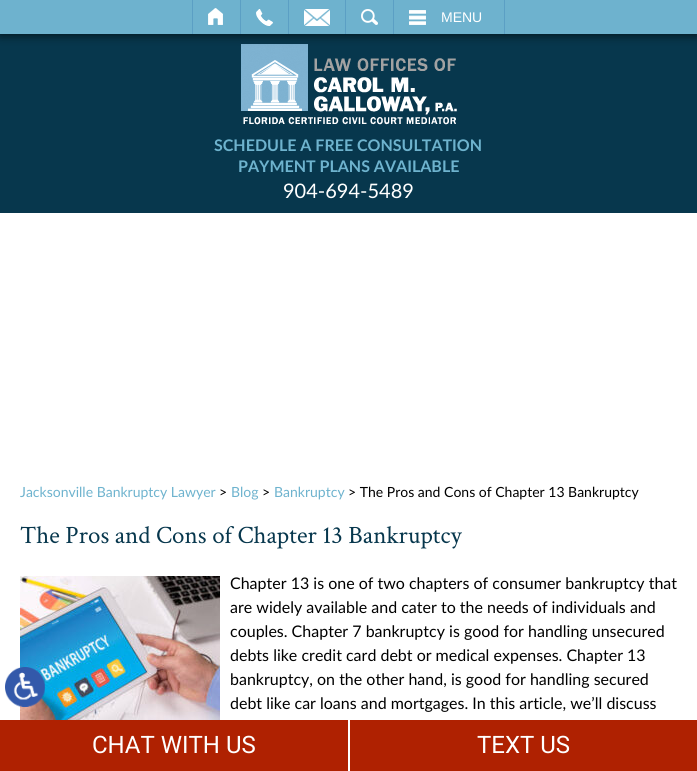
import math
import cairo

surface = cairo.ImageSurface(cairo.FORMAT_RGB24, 697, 771)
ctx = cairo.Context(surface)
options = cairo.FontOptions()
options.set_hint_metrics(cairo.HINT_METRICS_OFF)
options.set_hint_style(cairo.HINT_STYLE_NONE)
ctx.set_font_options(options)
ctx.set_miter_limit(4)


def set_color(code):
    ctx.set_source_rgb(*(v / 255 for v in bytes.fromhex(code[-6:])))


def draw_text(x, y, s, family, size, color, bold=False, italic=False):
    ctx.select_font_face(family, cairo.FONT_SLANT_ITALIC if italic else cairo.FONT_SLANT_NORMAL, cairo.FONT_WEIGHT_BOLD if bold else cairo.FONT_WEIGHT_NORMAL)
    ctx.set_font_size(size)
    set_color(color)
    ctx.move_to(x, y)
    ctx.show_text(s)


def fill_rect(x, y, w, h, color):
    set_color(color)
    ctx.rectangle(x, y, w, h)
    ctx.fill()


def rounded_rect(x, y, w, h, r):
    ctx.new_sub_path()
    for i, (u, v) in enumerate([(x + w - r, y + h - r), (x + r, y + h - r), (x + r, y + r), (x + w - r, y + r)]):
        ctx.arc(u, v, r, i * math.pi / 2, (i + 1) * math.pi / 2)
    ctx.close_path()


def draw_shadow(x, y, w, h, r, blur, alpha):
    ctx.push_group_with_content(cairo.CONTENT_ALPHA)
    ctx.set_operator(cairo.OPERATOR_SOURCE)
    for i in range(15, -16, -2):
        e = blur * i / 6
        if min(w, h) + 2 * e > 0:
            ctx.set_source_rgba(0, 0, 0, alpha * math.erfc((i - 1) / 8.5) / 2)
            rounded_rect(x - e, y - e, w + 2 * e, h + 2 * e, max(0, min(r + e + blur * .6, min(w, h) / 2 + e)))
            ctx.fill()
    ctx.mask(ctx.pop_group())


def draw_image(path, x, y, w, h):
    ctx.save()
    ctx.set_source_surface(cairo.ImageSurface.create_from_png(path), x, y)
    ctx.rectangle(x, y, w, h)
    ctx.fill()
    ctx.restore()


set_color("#ffffff")
ctx.paint()
fill_rect(0, 34, 697, 179, "#07374d")
draw_image("assets/img6.png", 241, 44, 216, 81)
set_color("#000000")
draw_shadow(0, 1, 697, 34, 0, 5, 0.7)
fill_rect(0, 0, 697, 34, "#6eb2ce")
fill_rect(240, 0, 1, 34, "#5b9fc4")
fill_rect(192, 0, 1, 34, "#5b9fc4")
draw_image("assets/img1.png", 208, 8, 15, 17)
fill_rect(288, 0, 1, 34, "#5b9fc4")
draw_image("assets/img2.png", 256, 9, 17, 17)
fill_rect(345, 0, 1, 34, "#5b9fc4")
draw_image("assets/img3.png", 304, 9, 26, 17)
fill_rect(393, 0, 1, 34, "#5b9fc4")
draw_image("assets/img4.png", 361, 9, 17, 16)
fill_rect(504, 0, 1, 34, "#5b9fc4")
draw_image("assets/img5.png", 409, 10, 17, 15)
draw_text(441, 22, "MENU", "Liberation Sans", 14, "#ffffff")
draw_text(214, 151, "SCHEDULE A FREE CONSULTATION", "Lato", 16, "#6eb3ce", bold=True)
draw_text(238, 172, "PAYMENT PLANS AVAILABLE", "Lato", 16, "#6eb3ce", bold=True)
draw_text(283, 198, "904-694-5489", "Lato", 20, "#ffffff")
draw_text(20, 497, "Jacksonville Bankruptcy Lawyer", "Lato", 14, "#6eb3ce")
draw_text(219, 497, ">", "Lato", 14, "#000000")
draw_text(231, 497, "Blog", "Lato", 14, "#6eb3ce")
draw_text(262, 497, ">", "Lato", 14, "#000000")
draw_text(274, 497, "Bankruptcy", "Lato", 14, "#6eb3ce")
draw_text(348, 497, "> The Pros and Cons of Chapter 13 Bankruptcy", "Lato", 14, "#000000")
draw_text(20, 543, "The Pros and Cons of Chapter 13 Bankruptcy", "Crimson Text", 25, "#07374d")
draw_image("assets/img7.png", 20, 576, 200, 144)
draw_text(230, 589, "Chapter 13 is one of two chapters of consumer bankruptcy that", "Lato", 16, "#000000")
draw_text(230, 613, "are widely available and cater to the needs of individuals and", "Lato", 16, "#000000")
draw_text(230, 637, "couples. Chapter 7 bankruptcy is good for handling unsecured", "Lato", 16, "#000000")
draw_text(230, 661, "debts like credit card debt or medical expenses. Chapter 13", "Lato", 16, "#000000")
draw_text(230, 685, "bankruptcy, on the other hand, is good for handling secured", "Lato", 16, "#000000")
draw_text(230, 709, "debt like car loans and mortgages. In this article, we’ll discuss", "Lato", 16, "#000000")
draw_image("assets/img8.png", 5, 667, 40, 40)
fill_rect(0, 720, 348, 51, "#af2101")
draw_text(92, 753, "CHAT WITH US", "Roboto", 24, "#ffffff")
fill_rect(350, 720, 347, 51, "#af2101")
draw_text(477, 753, "TEXT US", "Roboto", 24, "#ffffff")
surface.write_to_png("output.png")
